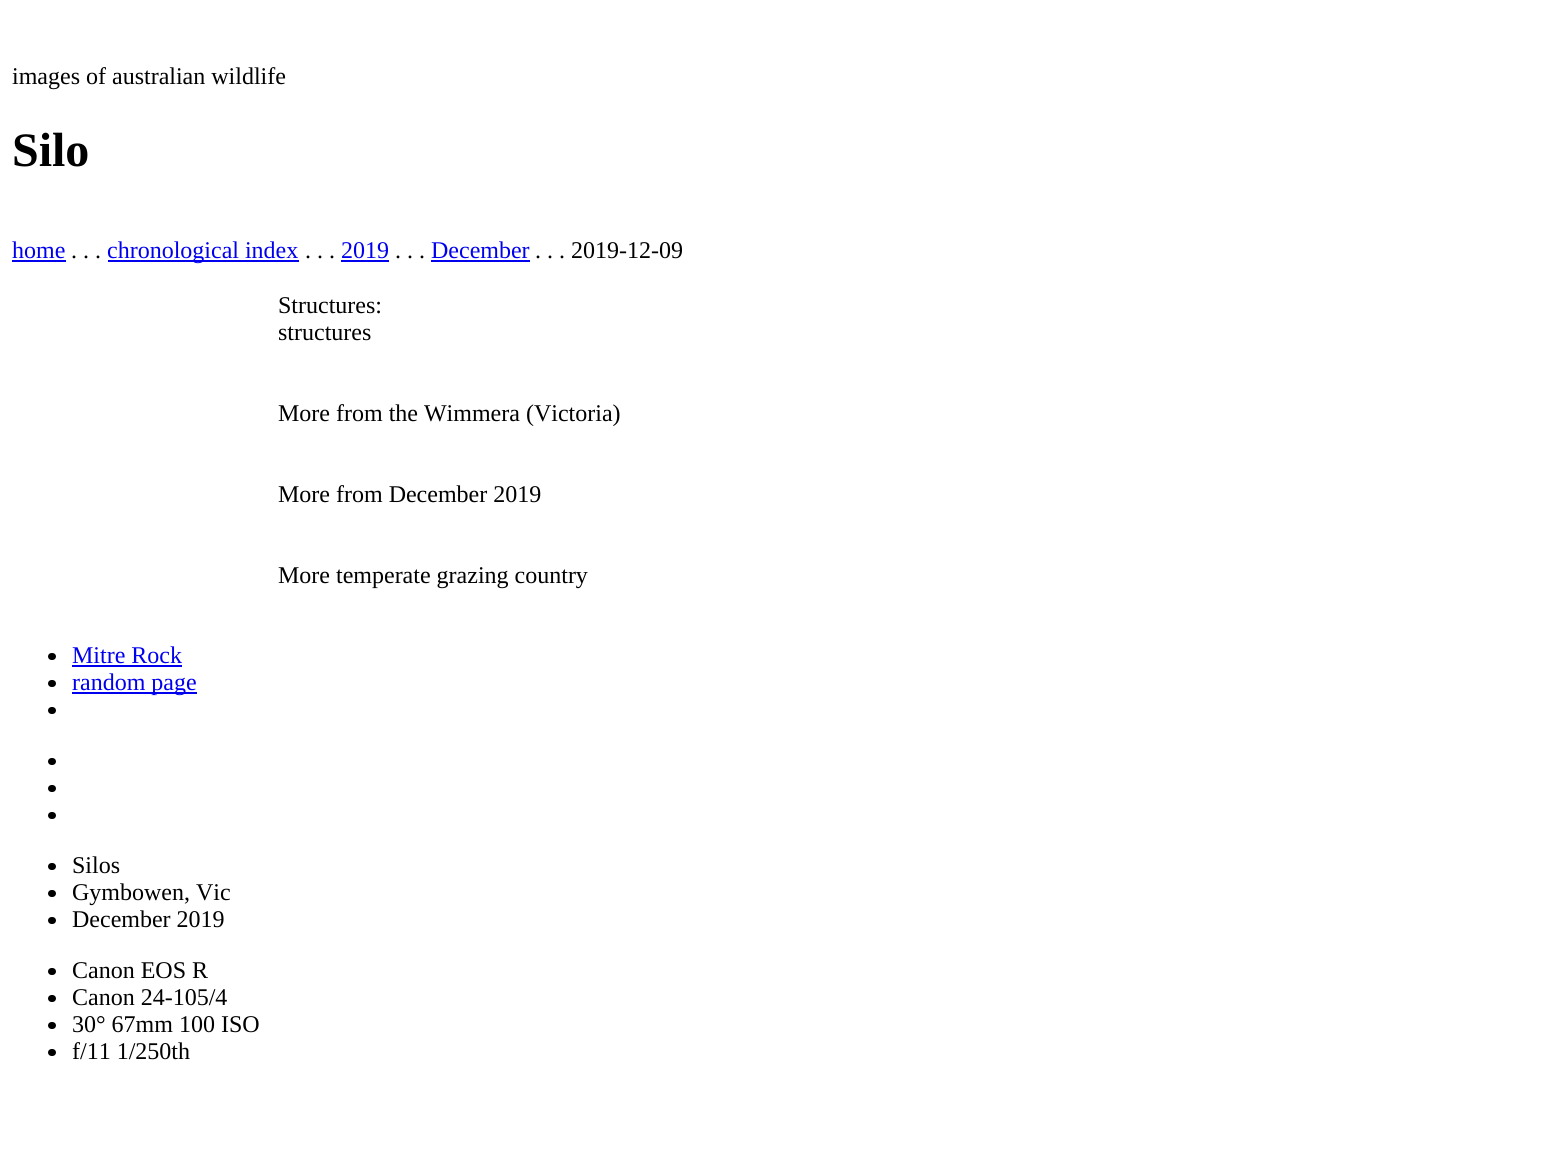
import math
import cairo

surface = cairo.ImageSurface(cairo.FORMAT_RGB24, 1561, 1173)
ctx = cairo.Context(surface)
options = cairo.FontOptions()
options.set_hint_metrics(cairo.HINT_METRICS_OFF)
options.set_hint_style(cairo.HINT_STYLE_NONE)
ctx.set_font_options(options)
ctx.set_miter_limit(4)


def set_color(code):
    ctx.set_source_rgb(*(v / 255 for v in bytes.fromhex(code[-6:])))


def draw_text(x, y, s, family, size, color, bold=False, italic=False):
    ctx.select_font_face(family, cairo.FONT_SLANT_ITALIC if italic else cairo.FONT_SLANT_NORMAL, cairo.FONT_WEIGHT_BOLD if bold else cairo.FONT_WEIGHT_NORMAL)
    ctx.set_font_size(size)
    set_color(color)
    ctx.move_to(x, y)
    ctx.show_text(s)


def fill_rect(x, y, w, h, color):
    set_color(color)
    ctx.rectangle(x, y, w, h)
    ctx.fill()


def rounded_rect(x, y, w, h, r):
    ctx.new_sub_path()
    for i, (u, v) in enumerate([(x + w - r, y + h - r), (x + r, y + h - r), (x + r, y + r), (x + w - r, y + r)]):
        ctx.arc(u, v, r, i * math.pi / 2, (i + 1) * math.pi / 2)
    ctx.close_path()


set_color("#ffffff")
ctx.paint()
draw_text(12, 84, "images of australian wildlife", "Liberation Serif", 24, "#000000")
draw_text(12, 166, "Silo", "Liberation Serif", 48, "#000000", bold=True)
draw_text(12, 258, "home", "Liberation Serif", 24, "#0000ee")
fill_rect(12, 260, 54, 2, "#0000ee")
draw_text(71, 258, ". . .", "Liberation Serif", 24, "#000000")
fill_rect(108, 260, 191, 2, "#0000ee")
draw_text(107, 258, "chronological index", "Liberation Serif", 24, "#0000ee")
draw_text(305, 258, ". . .", "Liberation Serif", 24, "#000000")
draw_text(341, 258, "2019", "Liberation Serif", 24, "#0000ee")
fill_rect(341, 260, 48, 2, "#0000ee")
draw_text(395, 258, ". . .", "Liberation Serif", 24, "#000000")
draw_text(431, 258, "December", "Liberation Serif", 24, "#0000ee")
fill_rect(431, 260, 99, 2, "#0000ee")
draw_text(535, 258, ". . . 2019-12-09", "Liberation Serif", 24, "#000000")
draw_text(278, 313, "Structures:", "Liberation Serif", 24, "#000000")
draw_text(278, 340, "structures", "Liberation Serif", 24, "#000000")
draw_text(278, 421, "More from the Wimmera (Victoria)", "Liberation Serif", 24, "#000000")
draw_text(278, 502, "More from December 2019", "Liberation Serif", 24, "#000000")
draw_text(278, 583, "More temperate grazing country", "Liberation Serif", 24, "#000000")
rounded_rect(48, 653, 8, 7, 3.5)
ctx.fill()
draw_text(72, 663, "Mitre Rock", "Liberation Serif", 24, "#0000ee")
fill_rect(72, 665, 110, 2, "#0000ee")
set_color("#000000")
rounded_rect(48, 680, 8, 7, 3.5)
ctx.fill()
fill_rect(72, 692, 125, 2, "#0000ee")
draw_text(72, 690, "random page", "Liberation Serif", 24, "#0000ee")
set_color("#000000")
rounded_rect(48, 707, 8, 7, 3.5)
ctx.fill()
rounded_rect(48, 758, 8, 7, 3.5)
ctx.fill()
rounded_rect(48, 785, 8, 7, 3.5)
ctx.fill()
rounded_rect(48, 812, 8, 7, 3.5)
ctx.fill()
rounded_rect(48, 863, 8, 7, 3.5)
ctx.fill()
draw_text(72, 873, "Silos", "Liberation Serif", 24, "#000000")
rounded_rect(48, 890, 8, 7, 3.5)
ctx.fill()
draw_text(72, 900, "Gymbowen, Vic", "Liberation Serif", 24, "#000000")
rounded_rect(48, 917, 8, 7, 3.5)
ctx.fill()
draw_text(72, 927, "December 2019", "Liberation Serif", 24, "#000000")
rounded_rect(48, 968, 8, 7, 3.5)
ctx.fill()
draw_text(72, 978, "Canon EOS R", "Liberation Serif", 24, "#000000")
rounded_rect(48, 995, 8, 7, 3.5)
ctx.fill()
draw_text(72, 1005, "Canon 24-105/4", "Liberation Serif", 24, "#000000")
rounded_rect(48, 1022, 8, 7, 3.5)
ctx.fill()
draw_text(72, 1032, "30° 67mm 100 ISO", "Liberation Serif", 24, "#000000")
rounded_rect(48, 1049, 8, 7, 3.5)
ctx.fill()
draw_text(72, 1059, "f/11 1/250th", "Liberation Serif", 24, "#000000")
surface.write_to_png("output.png")
